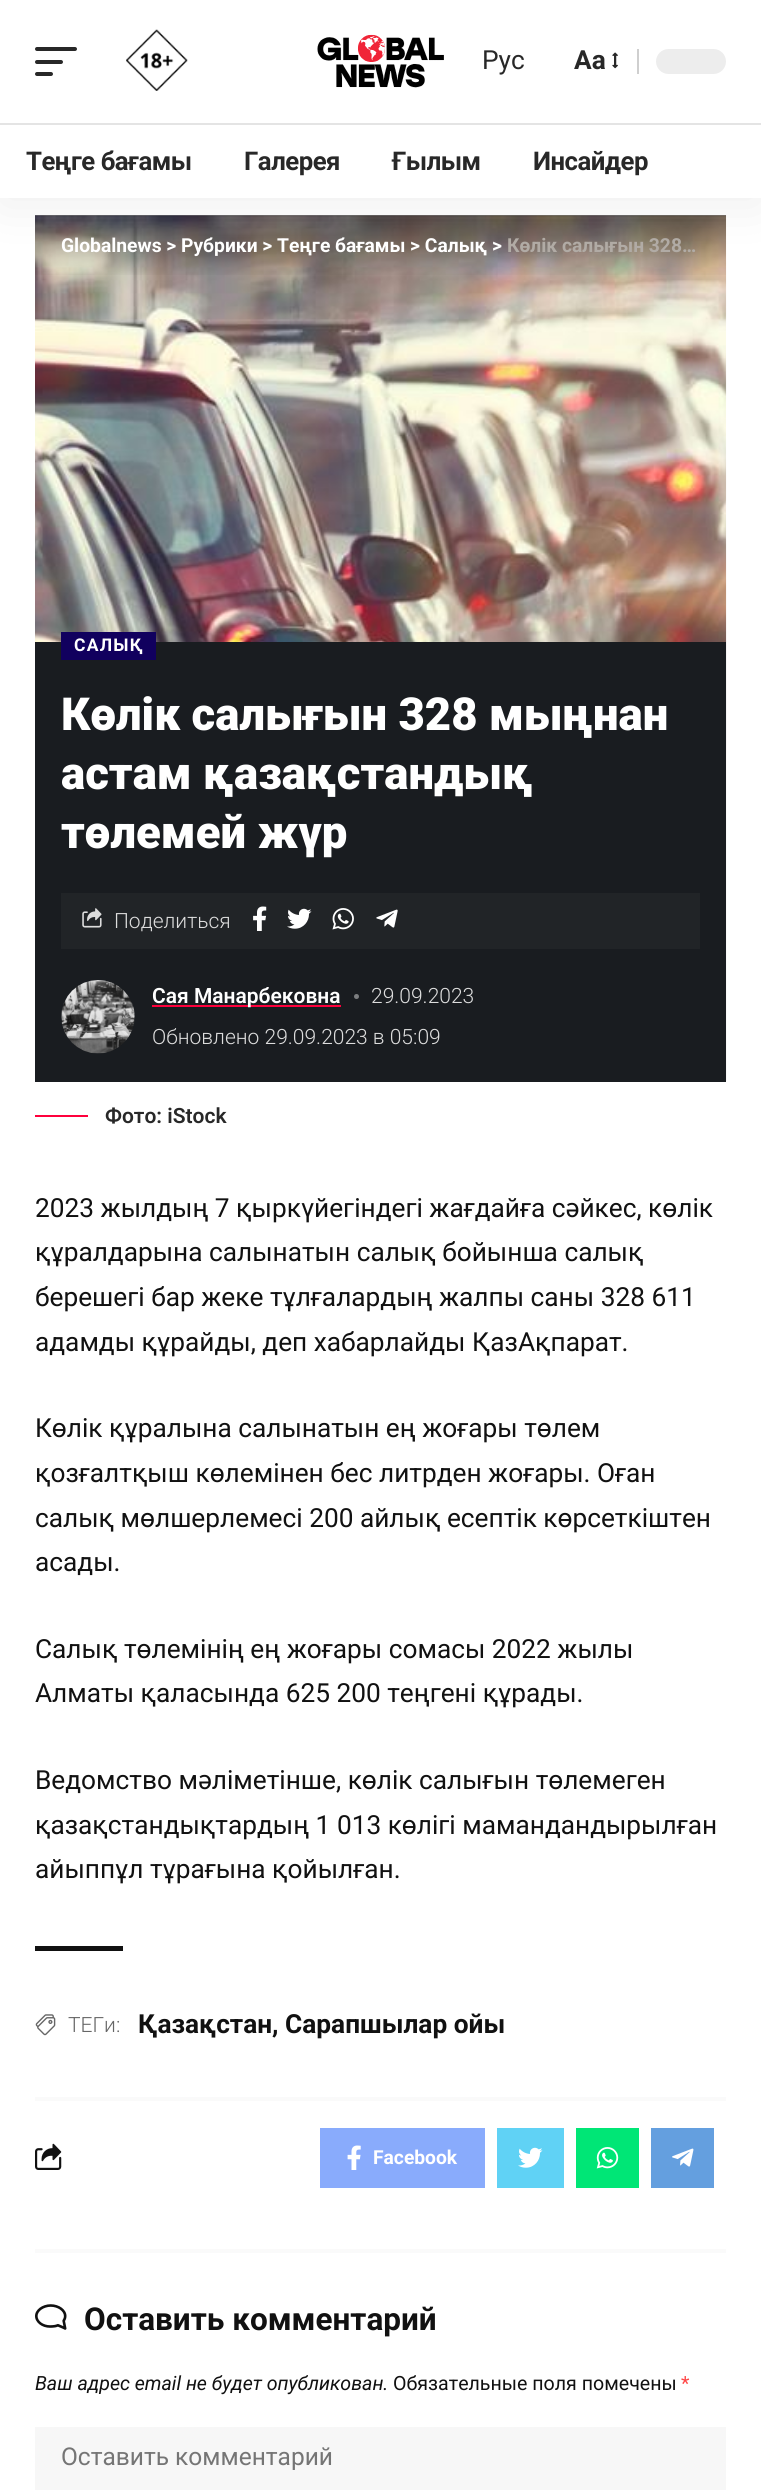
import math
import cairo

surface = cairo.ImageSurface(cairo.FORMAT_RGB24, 761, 2490)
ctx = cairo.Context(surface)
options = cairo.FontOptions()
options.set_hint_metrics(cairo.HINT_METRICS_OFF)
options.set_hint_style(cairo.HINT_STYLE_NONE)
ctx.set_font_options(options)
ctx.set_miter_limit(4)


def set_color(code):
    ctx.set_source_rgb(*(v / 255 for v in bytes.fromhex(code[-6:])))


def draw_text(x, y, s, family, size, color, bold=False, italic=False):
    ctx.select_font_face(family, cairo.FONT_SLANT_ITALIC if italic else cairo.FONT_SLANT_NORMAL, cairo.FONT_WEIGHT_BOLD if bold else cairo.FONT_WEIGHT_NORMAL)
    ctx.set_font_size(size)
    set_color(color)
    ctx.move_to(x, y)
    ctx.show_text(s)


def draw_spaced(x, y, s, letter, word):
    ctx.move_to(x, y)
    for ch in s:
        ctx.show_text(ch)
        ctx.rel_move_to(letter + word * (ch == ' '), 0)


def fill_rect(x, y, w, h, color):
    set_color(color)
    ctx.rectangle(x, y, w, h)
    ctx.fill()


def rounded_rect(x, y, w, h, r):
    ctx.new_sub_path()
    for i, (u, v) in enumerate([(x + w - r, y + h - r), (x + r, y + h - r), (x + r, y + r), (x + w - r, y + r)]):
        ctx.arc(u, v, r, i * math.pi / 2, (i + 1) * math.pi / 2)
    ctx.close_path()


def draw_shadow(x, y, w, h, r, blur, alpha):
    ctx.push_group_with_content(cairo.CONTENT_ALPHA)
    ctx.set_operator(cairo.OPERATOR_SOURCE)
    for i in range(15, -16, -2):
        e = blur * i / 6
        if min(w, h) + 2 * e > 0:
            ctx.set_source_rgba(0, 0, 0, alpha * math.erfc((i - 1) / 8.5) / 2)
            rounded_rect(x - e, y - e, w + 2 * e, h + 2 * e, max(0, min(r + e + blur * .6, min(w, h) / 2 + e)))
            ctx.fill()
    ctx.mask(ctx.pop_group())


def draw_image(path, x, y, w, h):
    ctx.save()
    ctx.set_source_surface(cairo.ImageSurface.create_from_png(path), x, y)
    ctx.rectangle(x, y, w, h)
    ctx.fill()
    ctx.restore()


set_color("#ffffff")
ctx.paint()
draw_image("assets/img4.png", 35, 215, 692, 866)
gradient = cairo.LinearGradient(381, 278, 381, 215)
gradient.add_color_stop_rgba(0, 0, 0, 0, 0)
gradient.add_color_stop_rgba(1, 0, 0, 0, 0.5)
ctx.set_source(gradient)
ctx.rectangle(35, 215, 691, 60)
ctx.fill()
set_color("#000000")
draw_shadow(0, 7, 761, 198, 0, 26, 0.07)
fill_rect(0, 0, 761, 198, "#ffffff")
set_color("#282828")
rounded_rect(35, 47, 42, 4, 2)
ctx.fill()
rounded_rect(35, 60, 28, 4, 2)
ctx.fill()
rounded_rect(35, 72, 18, 4, 2)
ctx.fill()
draw_image("assets/img1.png", 126, 29, 62, 62)
draw_image("assets/img2.png", 317, 34, 127, 54)
draw_text(482, 69, "Рус", "Roboto", 26.25, "#282828")
draw_text(574, 69, "Aa", "Roboto", 26.25, "#282828", bold=True)
draw_image("assets/img3.png", 612, 52, 6, 17)
fill_rect(637, 49, 2, 25, "#cfcfcf")
set_color("#ededed")
rounded_rect(656, 49, 70, 25, 12.5)
ctx.fill()
fill_rect(0, 123, 761, 2, "#e4e4e4")
ctx.set_font_size(25.75)
set_color("#282828")
draw_spaced(26, 170, "Теңге бағамы", -0.5, 0)
draw_spaced(244, 170, "Галерея", -0.5, 0)
draw_spaced(392, 170, "Ғылым", -0.5, 0)
draw_spaced(533, 170, "Инсайдер", -0.5, 0)
draw_text(61, 252, "Globalnews > Рубрики > Теңге бағамы > Cалық >", "Roboto", 19.25, "#ffffff", bold=True)
draw_text(507, 252, "Көлік салығын 328…", "Roboto", 19.25, "#b1aba5", bold=True)
fill_rect(35, 642, 691, 440, "#191c20")
fill_rect(61, 632, 95, 28, "#11005e")
ctx.set_font_size(17.5)
set_color("#ffffff")
draw_spaced(74, 651, "CАЛЫҚ", 1.25, 0)
draw_text(61, 730, "Көлік салығын 328 мыңнан", "Roboto Black", 45.5, "#ffffff")
draw_text(61, 789, "астам қазақстандық", "Roboto Black", 45.5, "#ffffff")
draw_text(61, 848, "төлемей жүр", "Roboto Black", 45.5, "#ffffff")
fill_rect(61, 893, 639, 56, "#212427")
draw_image("assets/img5.png", 82, 908, 20, 20)
draw_text(114, 928, "Поделиться", "Roboto Light", 21, "#dddddd")
draw_image("assets/img6.png", 253, 906, 14, 25)
draw_image("assets/img7.png", 287, 908, 25, 21)
draw_image("assets/img8.png", 332, 908, 22, 22)
draw_image("assets/img9.png", 376, 909, 22, 19)
draw_image("assets/img10.png", 61, 980, 74, 74)
fill_rect(152, 1005, 189, 2, "#ff003c")
draw_text(152, 1003, "Сая Манарбековна", "Roboto SemiBold", 21, "#ffffff")
set_color("#7b7d7f")
ctx.new_path()
ctx.arc(356.5, 996.5, 2.5, 0, 2 * math.pi)
ctx.fill()
draw_text(371, 1003, "29.09.2023", "Roboto Light", 21, "#dddddd")
draw_text(152, 1044, "Обновлено 29.09.2023 в 05:09", "Roboto Light", 21, "#dddddd")
fill_rect(35, 1115, 53, 2, "#ff003c")
draw_text(105, 1123, "Фото: iStock", "Roboto SemiBold", 21, "#282828")
draw_text(35, 1217, "2023 жылдың 7 қыркүйегіндегі жағдайға сәйкес, көлік", "Roboto", 26.25, "#111111")
draw_text(35, 1261, "құралдарына салынатын салық бойынша салық", "Roboto", 26.25, "#111111")
draw_text(35, 1306, "берешегі бар жеке тұлғалардың жалпы саны 328 611", "Roboto", 26.25, "#111111")
draw_text(35, 1351, "адамды құрайды, деп хабарлайды ҚазАқпарат.", "Roboto", 26.25, "#111111")
draw_text(35, 1437, "Көлік құралына салынатын ең жоғары төлем", "Roboto", 26.25, "#111111")
draw_text(35, 1482, "қозғалтқыш көлемінен бес литрден жоғары. Оған", "Roboto", 26.25, "#111111")
draw_text(35, 1527, "салық мөлшерлемесі 200 айлық есептік көрсеткіштен", "Roboto", 26.25, "#111111")
draw_text(35, 1571, "асады.", "Roboto", 26.25, "#111111")
draw_text(35, 1658, "Салық төлемінің ең жоғары сомасы 2022 жылы", "Roboto", 26.25, "#111111")
draw_text(35, 1702, "Алматы қаласында 625 200 теңгені құрады.", "Roboto", 26.25, "#111111")
draw_text(35, 1789, "Ведомство мәліметінше, көлік салығын төлемеген", "Roboto", 26.25, "#111111")
draw_text(35, 1834, "қазақстандықтардың 1 013 көлігі мамандандырылған", "Roboto", 26.25, "#111111")
draw_text(35, 1878, "айыппұл тұрағына қойылған.", "Roboto", 26.25, "#111111")
fill_rect(35, 1946, 88, 5, "#111111")
draw_image("assets/img11.png", 35, 2014, 21, 22)
draw_text(68, 2032, "ТЕГи:", "Roboto Light", 21, "#666666")
draw_text(138, 2033, "Қазақстан, Сарапшылар ойы", "Roboto", 26.25, "#111111", bold=True)
fill_rect(35, 2097, 691, 4, "#fafafa")
draw_image("assets/img12.png", 35, 2143, 27, 27)
fill_rect(320, 2128, 165, 60, "#89abfc")
draw_image("assets/img13.png", 347, 2145, 14, 25)
draw_text(373, 2164, "Facebook", "Roboto", 19.25, "#ffffff", bold=True)
fill_rect(497, 2128, 67, 60, "#60d2f5")
draw_image("assets/img14.png", 518, 2147, 25, 21)
fill_rect(576, 2128, 63, 60, "#00e676")
draw_image("assets/img15.png", 596, 2147, 23, 22)
fill_rect(651, 2128, 63, 60, "#649fdf")
draw_image("assets/img16.png", 672, 2148, 22, 19)
fill_rect(35, 2249, 691, 4, "#fafafa")
draw_image("assets/img17.png", 35, 2304, 32, 26)
draw_text(84, 2330, "Оставить комментарий", "Roboto", 31.5, "#111111", bold=True)
draw_text(35, 2390, "Ваш адрес email не будет опубликован.", "Roboto", 19.6, "#111111", italic=True)
draw_text(393, 2390, "Обязательные поля помечены", "Roboto", 19.6, "#111111")
draw_text(681, 2390, "*", "Roboto", 19.6, "#ff4545")
fill_rect(35, 2427, 691, 63, "#f7f7f7")
draw_text(61, 2465, "Оставить комментарий", "Roboto", 24.5, "#757575")
surface.write_to_png("output.png")
